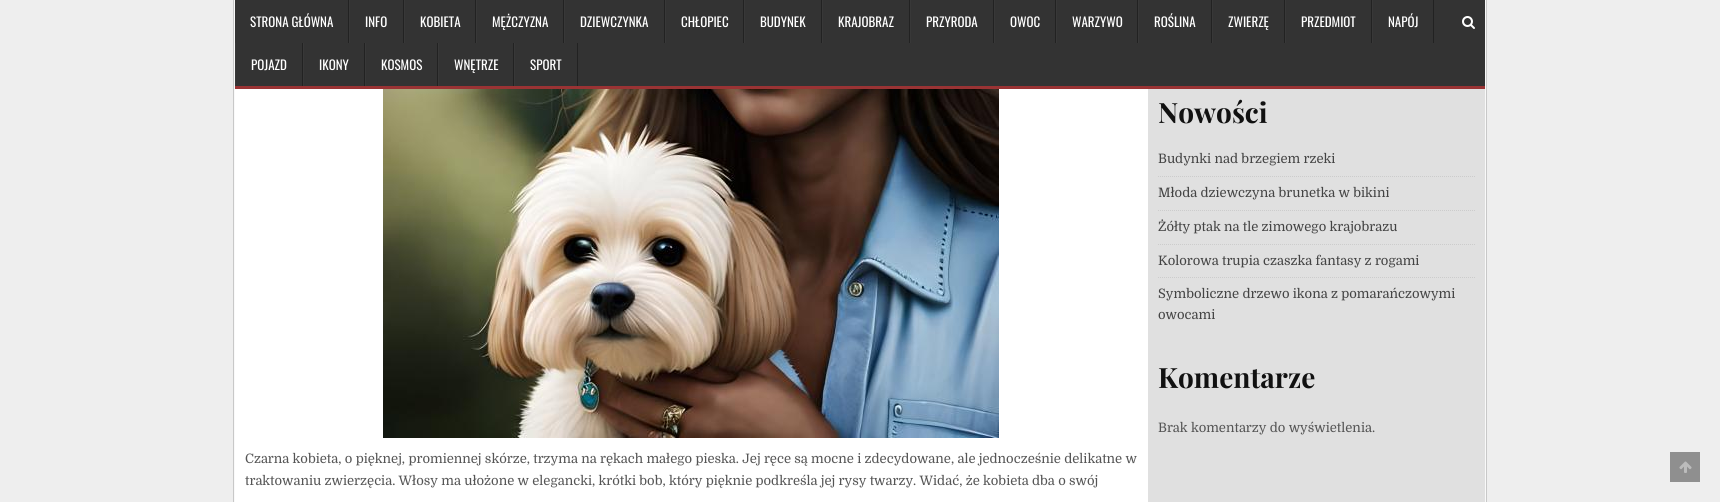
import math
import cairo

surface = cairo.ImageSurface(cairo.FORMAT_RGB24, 1720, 502)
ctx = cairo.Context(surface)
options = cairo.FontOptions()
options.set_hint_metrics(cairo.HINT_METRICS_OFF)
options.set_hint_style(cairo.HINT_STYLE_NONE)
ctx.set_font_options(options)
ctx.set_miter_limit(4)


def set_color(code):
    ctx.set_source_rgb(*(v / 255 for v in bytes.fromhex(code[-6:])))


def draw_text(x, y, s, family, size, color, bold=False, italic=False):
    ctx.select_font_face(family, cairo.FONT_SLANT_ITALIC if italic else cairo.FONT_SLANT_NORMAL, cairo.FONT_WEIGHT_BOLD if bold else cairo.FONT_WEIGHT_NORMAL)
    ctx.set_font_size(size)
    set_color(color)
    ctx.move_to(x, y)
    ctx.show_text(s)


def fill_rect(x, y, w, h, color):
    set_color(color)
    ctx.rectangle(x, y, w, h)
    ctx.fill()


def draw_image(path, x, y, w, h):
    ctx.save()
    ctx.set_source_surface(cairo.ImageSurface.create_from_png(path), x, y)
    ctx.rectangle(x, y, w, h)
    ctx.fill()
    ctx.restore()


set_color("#eeeeee")
ctx.paint()
ctx.rectangle(233.5, -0.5, 1253, 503)
set_color("#c8c8c8")
ctx.set_line_width(1)
ctx.stroke()
ctx.rectangle(234.5, -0.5, 1251, 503)
set_color("#f9f9f9")
ctx.stroke()
fill_rect(235, 0, 1250, 86, "#333333")
fill_rect(235, 86, 1250, 3, "#9a3334")
fill_rect(348, 0, 1, 43, "#222222")
draw_text(250, 27, "STRONA GŁÓWNA", "Oswald", 13, "#ffffff")
fill_rect(403, 0, 1, 43, "#222222")
fill_rect(349, 0, 1, 43, "#383838")
draw_text(365, 27, "INFO", "Oswald", 13, "#ffffff")
fill_rect(475, 0, 1, 43, "#222222")
fill_rect(404, 0, 1, 43, "#383838")
draw_text(420, 27, "KOBIETA", "Oswald", 13, "#ffffff")
fill_rect(563, 0, 1, 43, "#222222")
fill_rect(476, 0, 1, 43, "#383838")
draw_text(492, 27, "MĘŻCZYZNA", "Oswald", 13, "#ffffff")
fill_rect(664, 0, 1, 43, "#222222")
fill_rect(564, 0, 1, 43, "#383838")
draw_text(580, 27, "DZIEWCZYNKA", "Oswald", 13, "#ffffff")
fill_rect(743, 0, 1, 43, "#222222")
fill_rect(665, 0, 1, 43, "#383838")
draw_text(681, 27, "CHŁOPIEC", "Oswald", 13, "#ffffff")
fill_rect(821, 0, 1, 43, "#222222")
fill_rect(744, 0, 1, 43, "#383838")
draw_text(760, 27, "BUDYNEK", "Oswald", 13, "#ffffff")
fill_rect(909, 0, 1, 43, "#222222")
fill_rect(822, 0, 1, 43, "#383838")
draw_text(838, 27, "KRAJOBRAZ", "Oswald", 13, "#ffffff")
fill_rect(993, 0, 1, 43, "#222222")
fill_rect(910, 0, 1, 43, "#383838")
draw_text(926, 27, "PRZYRODA", "Oswald", 13, "#ffffff")
fill_rect(1055, 0, 1, 43, "#222222")
fill_rect(994, 0, 1, 43, "#383838")
draw_text(1010, 27, "OWOC", "Oswald", 13, "#ffffff")
fill_rect(1137, 0, 1, 43, "#222222")
fill_rect(1056, 0, 1, 43, "#383838")
draw_text(1072, 27, "WARZYWO", "Oswald", 13, "#ffffff")
fill_rect(1211, 0, 1, 43, "#222222")
fill_rect(1138, 0, 1, 43, "#383838")
draw_text(1154, 27, "ROŚLINA", "Oswald", 13, "#ffffff")
fill_rect(1284, 0, 1, 43, "#222222")
fill_rect(1212, 0, 1, 43, "#383838")
draw_text(1228, 27, "ZWIERZĘ", "Oswald", 13, "#ffffff")
fill_rect(1371, 0, 1, 43, "#222222")
fill_rect(1285, 0, 1, 43, "#383838")
draw_text(1301, 27, "PRZEDMIOT", "Oswald", 13, "#ffffff")
fill_rect(1433, 0, 1, 43, "#222222")
fill_rect(1372, 0, 1, 43, "#383838")
draw_text(1388, 27, "NAPÓJ", "Oswald", 13, "#ffffff")
fill_rect(302, 43, 1, 43, "#222222")
fill_rect(235, 43, 1, 43, "#383838")
draw_text(251, 70, "POJAZD", "Oswald", 13, "#ffffff")
fill_rect(364, 43, 1, 43, "#222222")
fill_rect(303, 43, 1, 43, "#383838")
draw_text(319, 70, "IKONY", "Oswald", 13, "#ffffff")
fill_rect(437, 43, 1, 43, "#222222")
fill_rect(365, 43, 1, 43, "#383838")
draw_text(381, 70, "KOSMOS", "Oswald", 13, "#ffffff")
fill_rect(513, 43, 1, 43, "#222222")
fill_rect(438, 43, 1, 43, "#383838")
draw_text(454, 70, "WNĘTRZE", "Oswald", 13, "#ffffff")
fill_rect(577, 43, 1, 43, "#222222")
fill_rect(514, 43, 1, 43, "#383838")
draw_text(530, 70, "SPORT", "Oswald", 13, "#ffffff")
draw_image("assets/img1.png", 1462, 16, 13, 13)
fill_rect(235, 89, 913, 413, "#ffffff")
fill_rect(1148, 89, 337, 413, "#e0e0e0")
draw_text(1158, 123, "Nowości", "Playfair Display", 28, "#111111", bold=True)
ctx.new_path()
ctx.move_to(1158, 176.5)
ctx.line_to(1475, 176.5)
set_color("#cccccc")
ctx.set_dash([1, 1])
ctx.stroke()
draw_text(1158, 163, "Budynki nad brzegiem rzeki", "Domine", 13, "#444444")
ctx.new_path()
ctx.move_to(1158, 210.5)
ctx.line_to(1475, 210.5)
set_color("#cccccc")
ctx.stroke()
draw_text(1158, 197, "Młoda dziewczyna brunetka w bikini", "Domine", 13, "#444444")
ctx.new_path()
ctx.move_to(1158, 244.5)
ctx.line_to(1475, 244.5)
set_color("#cccccc")
ctx.stroke()
draw_text(1158, 231, "Żółty ptak na tle zimowego krajobrazu", "Domine", 13, "#444444")
ctx.new_path()
ctx.move_to(1158, 277.5)
ctx.line_to(1475, 277.5)
set_color("#cccccc")
ctx.stroke()
draw_text(1158, 265, "Kolorowa trupia czaszka fantasy z rogami", "Domine", 13, "#444444")
draw_text(1158, 298, "Symboliczne drzewo ikona z pomarańczowymi", "Domine", 13, "#444444")
draw_text(1158, 319, "owocami", "Domine", 13, "#444444")
draw_text(1158, 388, "Komentarze", "Playfair Display", 28, "#111111", bold=True)
draw_text(1158, 432, "Brak komentarzy do wyświetlenia.", "Domine", 13, "#555555")
draw_image("assets/img2.png", 383, 89, 616, 349)
draw_text(245, 463, "Czarna kobieta, o pięknej, promiennej skórze, trzyma na rękach małego pieska. Jej ręce są mocne i zdecydowane, ale jednocześnie delikatne w", "Domine", 13, "#555555")
draw_text(245, 485, "traktowaniu zwierzęcia. Włosy ma ułożone w elegancki, krótki bob, który pięknie podkreśla jej rysy twarzy. Widać, że kobieta dba o swój", "Domine", 13, "#555555")
fill_rect(1670, 452, 30, 30, "#8f8f8f")
draw_image("assets/img3.png", 1679, 461, 13, 12)
surface.write_to_png("output.png")
